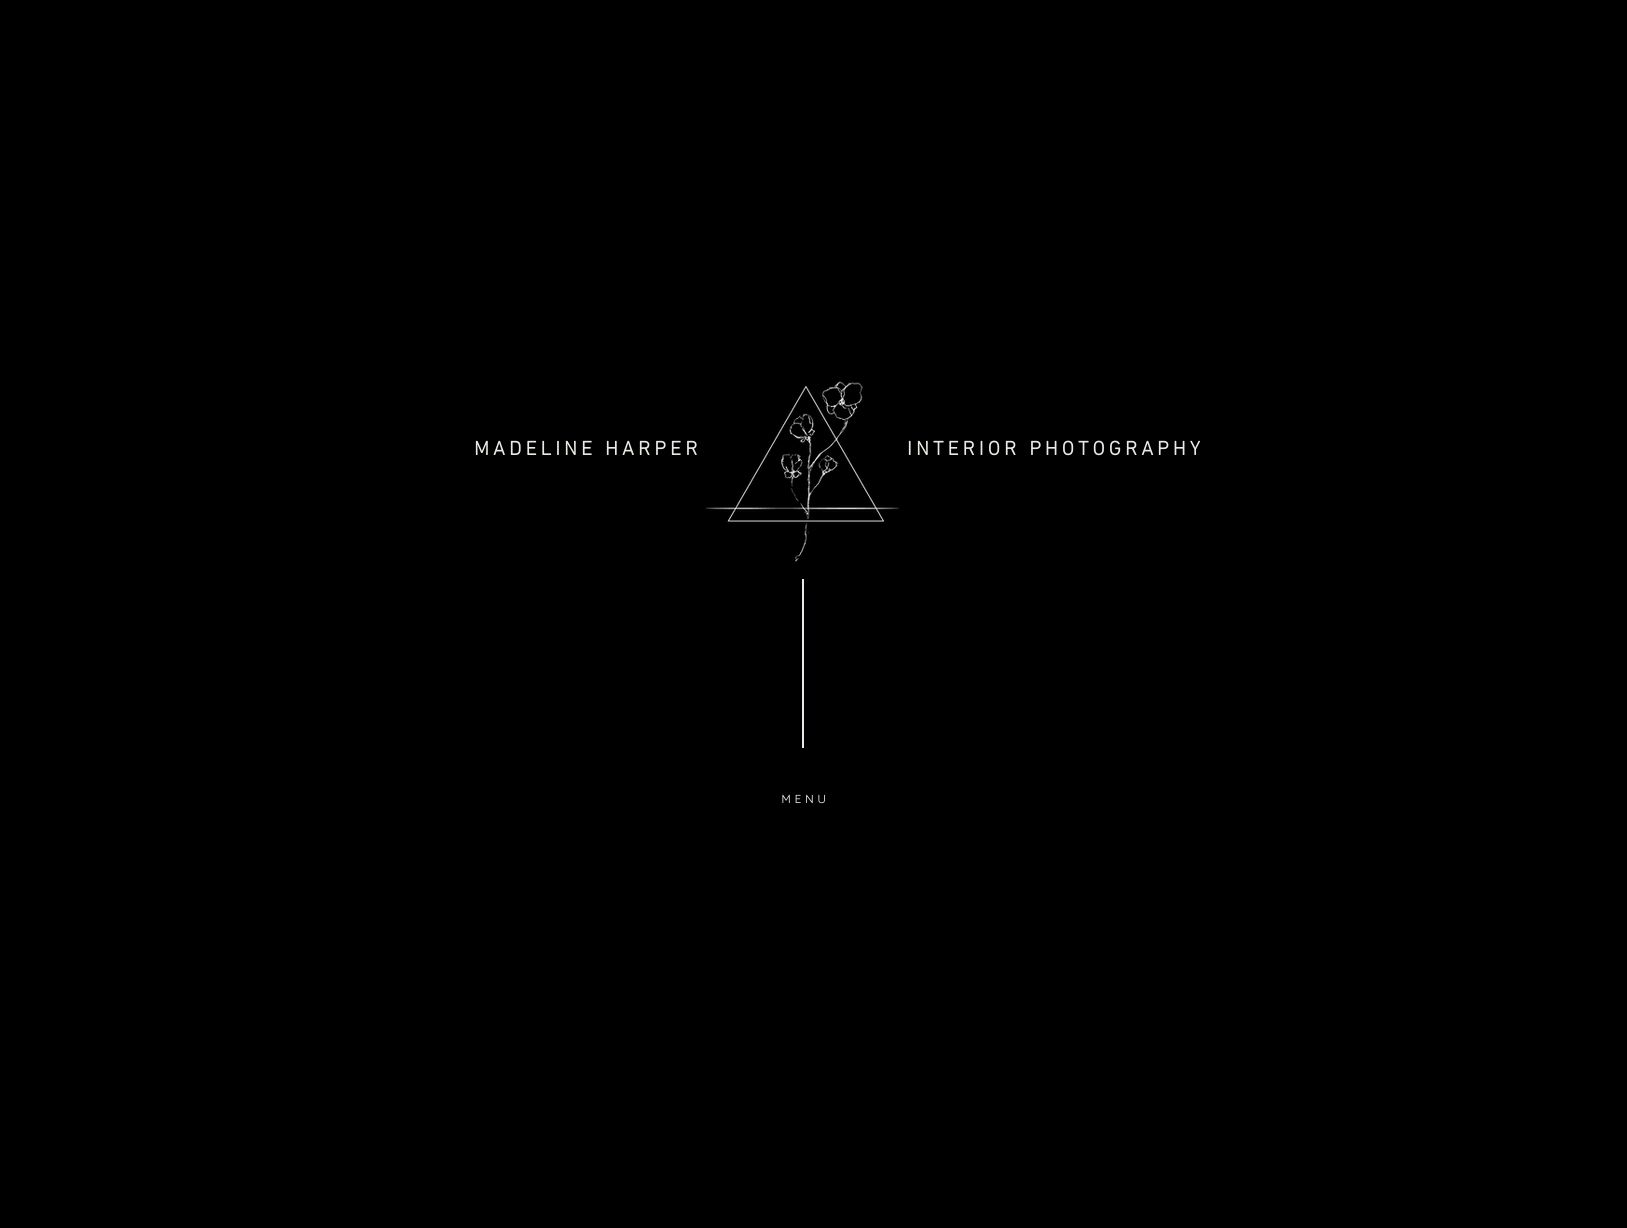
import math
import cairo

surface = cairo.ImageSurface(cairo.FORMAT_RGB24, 1627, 1228)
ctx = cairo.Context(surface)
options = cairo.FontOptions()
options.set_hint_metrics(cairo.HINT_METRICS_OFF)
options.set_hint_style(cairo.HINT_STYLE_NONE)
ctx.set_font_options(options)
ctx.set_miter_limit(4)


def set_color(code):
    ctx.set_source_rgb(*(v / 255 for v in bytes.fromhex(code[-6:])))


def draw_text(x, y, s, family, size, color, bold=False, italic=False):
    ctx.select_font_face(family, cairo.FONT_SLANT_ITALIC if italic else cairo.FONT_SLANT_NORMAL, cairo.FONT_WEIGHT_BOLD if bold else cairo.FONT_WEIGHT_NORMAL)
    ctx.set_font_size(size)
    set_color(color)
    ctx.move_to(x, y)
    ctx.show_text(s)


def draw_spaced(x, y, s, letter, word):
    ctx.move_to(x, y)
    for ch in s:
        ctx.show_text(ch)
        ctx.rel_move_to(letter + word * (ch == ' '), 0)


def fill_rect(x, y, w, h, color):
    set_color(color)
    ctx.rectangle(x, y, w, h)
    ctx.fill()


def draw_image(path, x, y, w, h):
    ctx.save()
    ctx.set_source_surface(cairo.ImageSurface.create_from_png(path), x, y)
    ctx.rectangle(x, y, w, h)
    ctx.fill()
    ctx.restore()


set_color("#000000")
ctx.paint()
ctx.select_font_face("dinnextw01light", cairo.FONT_SLANT_NORMAL, cairo.FONT_WEIGHT_BOLD)
ctx.set_font_size(20)
set_color("#ece9e4")
draw_spaced(474, 455, "MADELINE HARPER", 4, 0)
draw_image("assets/img1.png", 706, 381, 193, 181)
draw_spaced(907, 455, "INTERIOR PHOTOGRAPHY", 4, 0)
fill_rect(802, 579, 2, 169, "#ece9e4")
draw_text(781, 803, "M E N U", "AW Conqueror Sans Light", 12, "#ece9e4")
surface.write_to_png("output.png")
